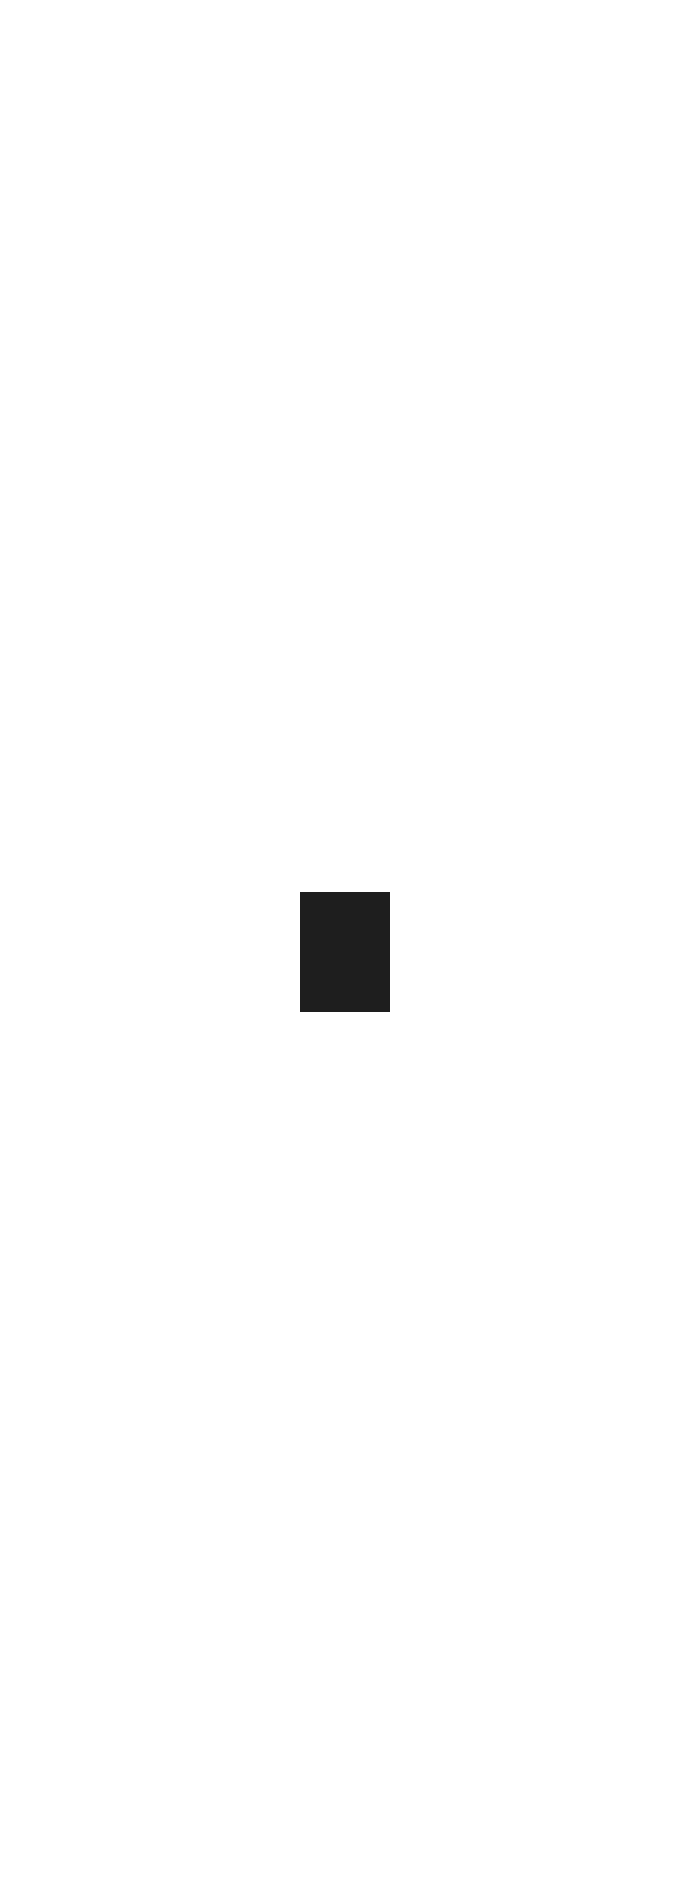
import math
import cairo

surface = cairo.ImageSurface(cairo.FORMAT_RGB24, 687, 1904)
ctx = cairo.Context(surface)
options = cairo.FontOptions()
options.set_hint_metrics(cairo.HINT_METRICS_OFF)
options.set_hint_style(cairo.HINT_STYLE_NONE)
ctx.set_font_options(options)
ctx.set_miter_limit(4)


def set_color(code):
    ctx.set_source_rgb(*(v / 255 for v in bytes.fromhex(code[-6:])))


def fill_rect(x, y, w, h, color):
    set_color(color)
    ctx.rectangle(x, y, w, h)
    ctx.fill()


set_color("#ffffff")
ctx.paint()
fill_rect(300, 892, 90, 120, "#1e1e1e")
surface.write_to_png("output.png")
